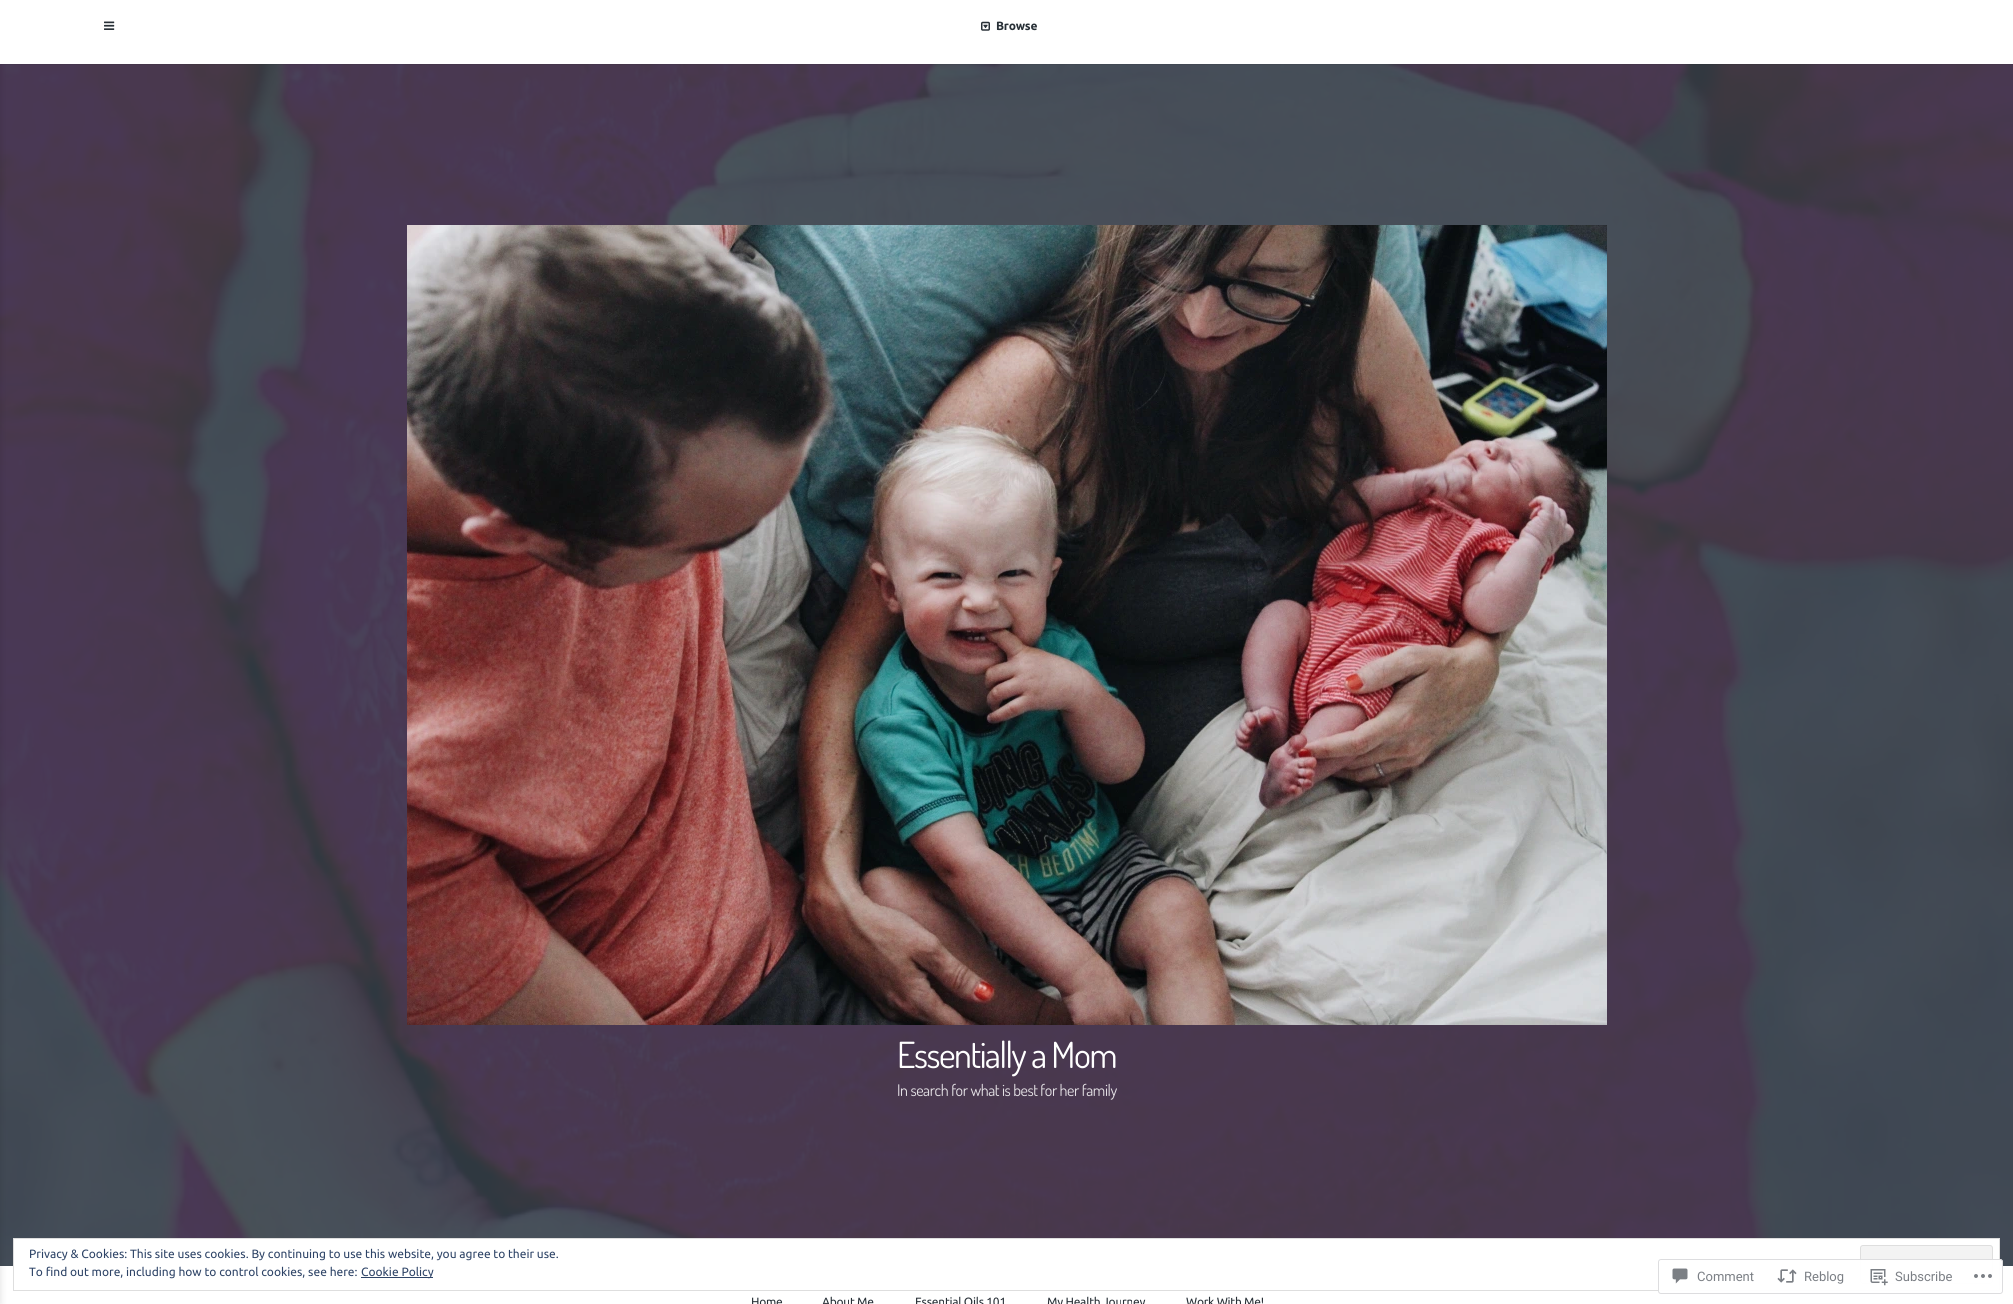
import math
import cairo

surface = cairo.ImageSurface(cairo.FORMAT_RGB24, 2013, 1304)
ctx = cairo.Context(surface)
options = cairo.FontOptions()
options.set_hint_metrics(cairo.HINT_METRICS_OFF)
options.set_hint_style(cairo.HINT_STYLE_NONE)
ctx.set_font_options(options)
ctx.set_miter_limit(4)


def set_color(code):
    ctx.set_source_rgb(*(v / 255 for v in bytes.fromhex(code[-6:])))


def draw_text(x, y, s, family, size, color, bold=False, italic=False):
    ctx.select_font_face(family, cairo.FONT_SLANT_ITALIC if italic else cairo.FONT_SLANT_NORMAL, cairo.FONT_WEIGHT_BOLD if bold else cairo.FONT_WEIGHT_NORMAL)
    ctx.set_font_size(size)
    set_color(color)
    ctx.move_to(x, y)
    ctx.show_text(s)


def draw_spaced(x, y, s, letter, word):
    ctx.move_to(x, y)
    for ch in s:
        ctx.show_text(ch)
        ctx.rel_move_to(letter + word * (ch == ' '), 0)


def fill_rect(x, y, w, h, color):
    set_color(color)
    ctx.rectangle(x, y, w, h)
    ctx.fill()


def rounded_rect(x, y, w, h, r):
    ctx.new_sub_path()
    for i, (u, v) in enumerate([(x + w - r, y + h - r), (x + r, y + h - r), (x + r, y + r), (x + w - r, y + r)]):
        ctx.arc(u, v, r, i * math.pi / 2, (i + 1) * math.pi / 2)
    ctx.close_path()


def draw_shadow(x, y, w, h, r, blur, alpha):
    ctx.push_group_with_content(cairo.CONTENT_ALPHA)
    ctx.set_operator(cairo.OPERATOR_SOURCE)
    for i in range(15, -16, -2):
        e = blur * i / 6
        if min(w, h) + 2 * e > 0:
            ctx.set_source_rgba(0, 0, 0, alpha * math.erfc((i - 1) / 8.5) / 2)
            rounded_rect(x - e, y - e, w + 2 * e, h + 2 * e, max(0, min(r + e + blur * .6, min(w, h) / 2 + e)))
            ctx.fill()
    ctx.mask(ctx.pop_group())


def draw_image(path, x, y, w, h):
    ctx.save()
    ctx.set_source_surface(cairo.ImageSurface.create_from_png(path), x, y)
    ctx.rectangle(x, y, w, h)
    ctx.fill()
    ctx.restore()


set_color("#ffffff")
ctx.paint()
fill_rect(0, 64, 2013, 1202, "#343e47")
draw_image("assets/img3.png", 0, 64, 2013, 1202)
fill_rect(14, 1239, 1985, 27, "#ffffff")
ctx.rectangle(13.5, 1238.5, 1986, 52)
set_color("#dedede")
ctx.set_line_width(1)
ctx.stroke()
draw_text(29, 1258, "Privacy & Cookies: This site uses cookies. By continuing to use this website, you agree to their use.", "Ubuntu", 12, "#2e4467")
set_color("#f3f3f3")
rounded_rect(1860.5, 1245.5, 132, 38, 2.5)
ctx.fill_preserve()
set_color("#dedede")
ctx.stroke()
draw_text(29, 1276, "To find out more, including how to control cookies, see here:", "Ubuntu", 12, "#2e4467")
fill_rect(361, 1277, 72, 1, "#2e4467")
draw_text(361, 1276, "Cookie Policy", "Ubuntu", 12, "#2e4467")
set_color("#000000")
draw_shadow(-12, 0, 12, 1304, 0, 4, 0.13)
draw_shadow(1, 0, 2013, 64, 0, 0.5, 0.25)
fill_rect(0, 0, 2013, 64, "#ffffff")
draw_image("assets/img1.png", 104, 21, 11, 9)
draw_image("assets/img2.png", 981, 21, 9, 10)
ctx.select_font_face("Ubuntu", cairo.FONT_SLANT_NORMAL, cairo.FONT_WEIGHT_BOLD)
set_color("#283037")
draw_spaced(996, 30, "Browse", -0.25, 0)
draw_image("assets/img4.png", 407, 225, 1200, 800)
ctx.select_font_face("Dosis")
ctx.set_font_size(36)
set_color("#ffffff")
draw_spaced(897, 1068, "Essentially a Mom", -1.4, 0)
ctx.set_font_size(16)
set_color("#e4e1e5")
draw_spaced(897, 1096, "In search for what is best for her family", -0.4, 0)
ctx.select_font_face("Ubuntu")
ctx.set_font_size(12)
set_color("#283037")
draw_spaced(751, 1306, "Home", -0.25, 0)
draw_spaced(822, 1306, "About Me", -0.25, 0)
draw_spaced(915, 1306, "Essential Oils 101", -0.25, 0)
draw_spaced(1047, 1306, "My Health Journey", -0.25, 0)
draw_spaced(1186, 1306, "Work With Me!", -0.25, 0)
ctx.set_source_rgba(1, 1, 1, 0.98)
rounded_rect(1658, 1259, 345, 35, 3)
ctx.fill()
rounded_rect(1658.5, 1259.5, 344, 34, 2.5)
ctx.set_source_rgba(0.863, 0.863, 0.871, 0.98)
ctx.stroke()
draw_image("assets/img5.png", 1672, 1268, 16, 16)
draw_text(1697, 1281, "Comment", "Roboto", 13, "#7b7f85")
draw_image("assets/img6.png", 1777, 1269, 20, 14)
draw_text(1804, 1281, "Reblog", "Roboto", 13, "#7b7f85")
draw_image("assets/img7.png", 1870, 1269, 18, 17)
draw_text(1895, 1281, "Subscribe", "Roboto", 13, "#7b7f85")
draw_image("assets/img8.png", 1974, 1274, 18, 4)
surface.write_to_png("output.png")
